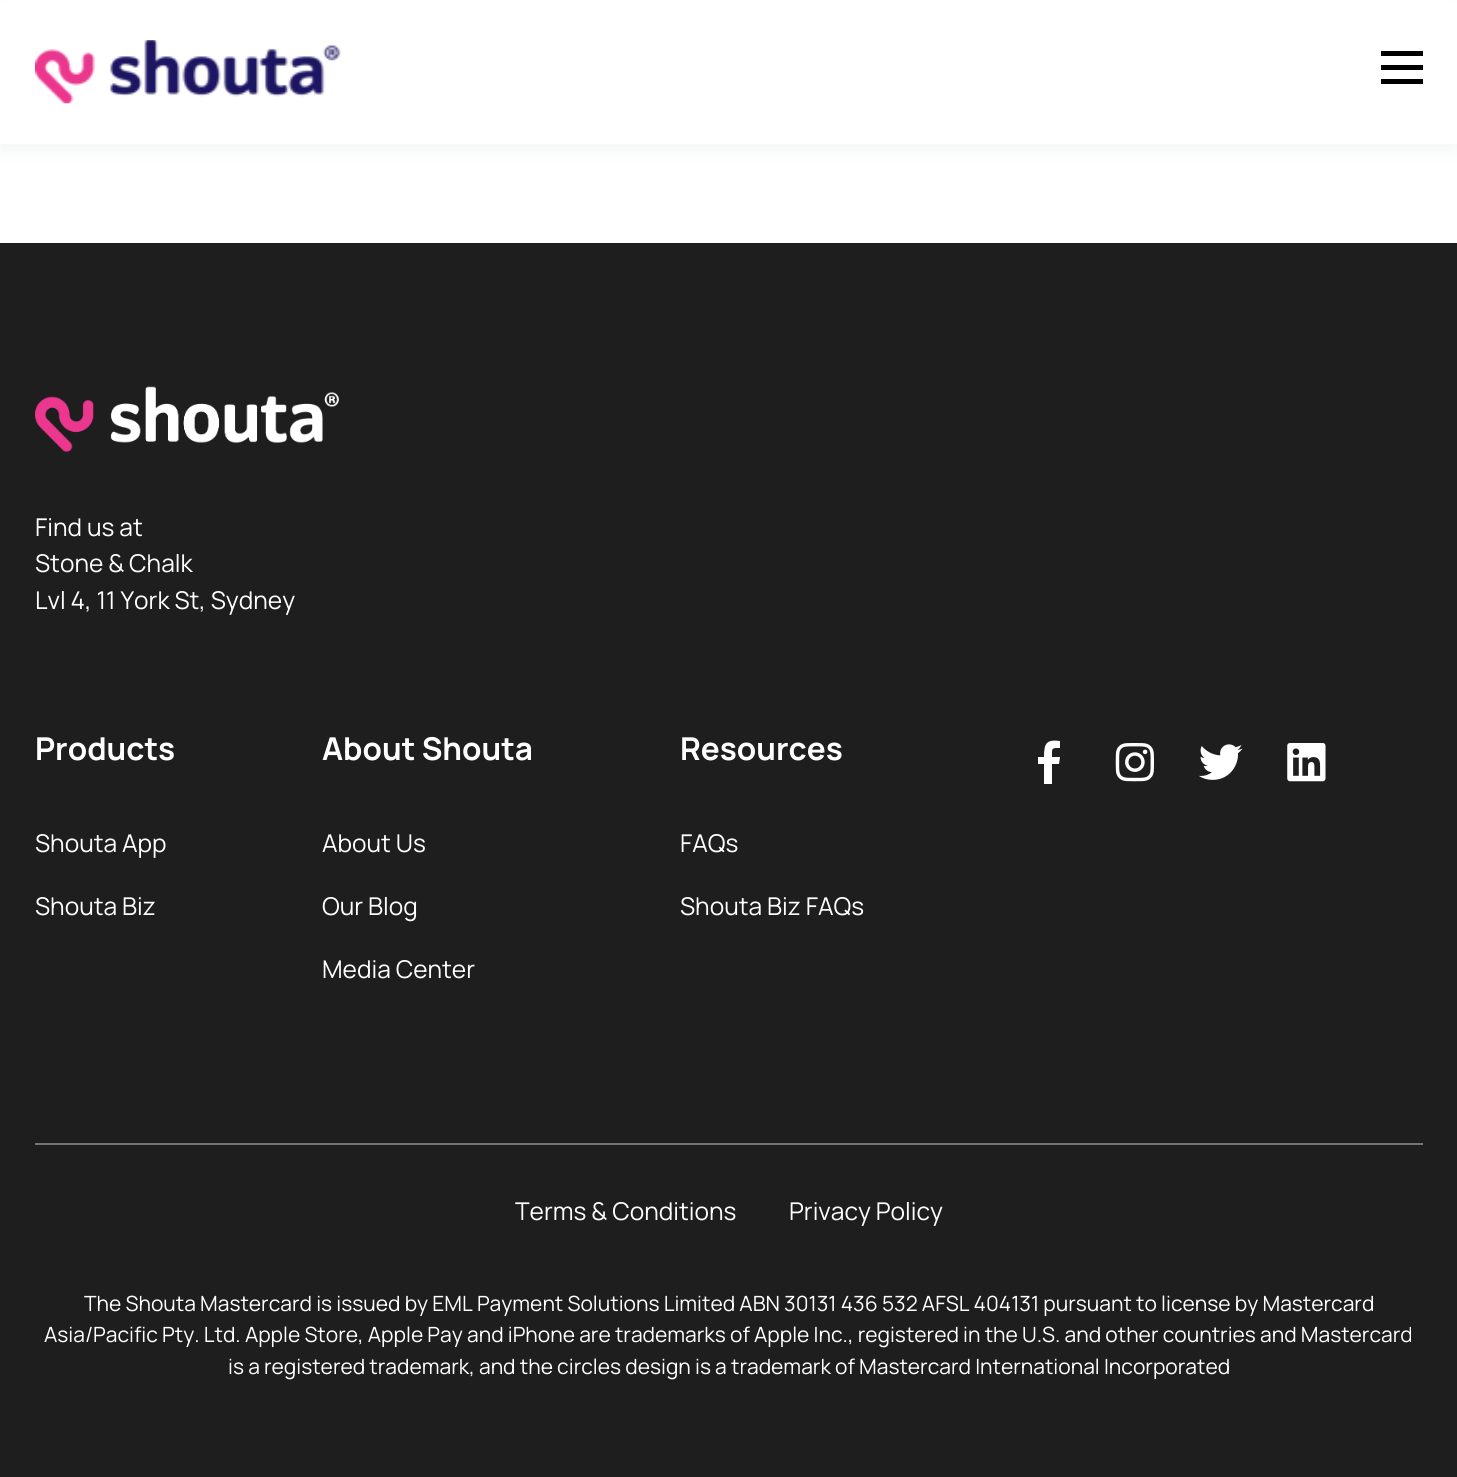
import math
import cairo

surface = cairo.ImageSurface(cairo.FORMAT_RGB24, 1457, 1477)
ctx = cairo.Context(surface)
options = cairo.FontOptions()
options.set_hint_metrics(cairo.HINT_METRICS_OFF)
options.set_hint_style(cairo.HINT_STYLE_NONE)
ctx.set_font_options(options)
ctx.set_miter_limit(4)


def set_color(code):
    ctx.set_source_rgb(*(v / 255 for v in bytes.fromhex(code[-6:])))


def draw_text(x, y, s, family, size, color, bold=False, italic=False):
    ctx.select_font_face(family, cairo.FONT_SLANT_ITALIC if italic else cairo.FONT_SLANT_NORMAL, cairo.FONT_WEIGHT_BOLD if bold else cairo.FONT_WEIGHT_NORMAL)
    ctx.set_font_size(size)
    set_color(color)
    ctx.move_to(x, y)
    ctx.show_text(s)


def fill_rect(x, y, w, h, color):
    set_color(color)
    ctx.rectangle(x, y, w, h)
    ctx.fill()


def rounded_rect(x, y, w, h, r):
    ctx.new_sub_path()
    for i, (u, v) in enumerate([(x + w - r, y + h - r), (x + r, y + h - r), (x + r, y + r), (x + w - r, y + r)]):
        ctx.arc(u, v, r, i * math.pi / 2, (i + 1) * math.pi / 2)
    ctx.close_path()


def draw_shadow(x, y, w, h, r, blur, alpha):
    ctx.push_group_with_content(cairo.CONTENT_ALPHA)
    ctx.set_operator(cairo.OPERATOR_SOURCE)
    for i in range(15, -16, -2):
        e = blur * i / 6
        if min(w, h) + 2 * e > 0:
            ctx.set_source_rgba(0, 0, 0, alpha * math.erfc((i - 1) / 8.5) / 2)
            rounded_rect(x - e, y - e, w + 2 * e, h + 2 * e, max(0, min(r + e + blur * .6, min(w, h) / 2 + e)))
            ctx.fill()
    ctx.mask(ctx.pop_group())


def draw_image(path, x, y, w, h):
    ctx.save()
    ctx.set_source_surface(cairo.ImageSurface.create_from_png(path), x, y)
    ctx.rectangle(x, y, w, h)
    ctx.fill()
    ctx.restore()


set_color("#ffffff")
ctx.paint()
set_color("#9aa1b1")
draw_shadow(0, 9, 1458, 143, 0, 9, 0.1)
fill_rect(0, 3, 1457, 141, "#ffffff")
draw_image("assets/img1.png", 35, 40, 306, 64)
fill_rect(1381, 65, 42, 5, "#000000")
fill_rect(1381, 51, 42, 5, "#000000")
fill_rect(1381, 79, 42, 5, "#000000")
fill_rect(0, 243, 1457, 1234, "#1e1e1e")
draw_image("assets/img2.png", 35, 386, 304, 66)
draw_text(35, 536, "Find us at", "Manrope", 24.5, "#ffffff")
draw_text(35, 572, "Stone & Chalk", "Manrope", 24.5, "#ffffff")
draw_text(35, 609, "Lvl 4, 11 York St, Sydney", "Manrope", 24.5, "#ffffff")
draw_text(35, 760, "Products", "Manrope", 31.5, "#ffffff", bold=True)
draw_text(35, 852, "Shouta App", "Manrope", 24.5, "#ffffff")
draw_text(35, 915, "Shouta Biz", "Manrope", 24.5, "#ffffff")
draw_text(322, 760, "About Shouta", "Manrope", 31.5, "#ffffff", bold=True)
draw_text(322, 852, "About Us", "Manrope", 24.5, "#ffffff")
draw_text(322, 915, "Our Blog", "Manrope", 24.5, "#ffffff")
draw_text(322, 978, "Media Center", "Manrope", 24.5, "#ffffff")
draw_text(680, 760, "Resources", "Manrope", 31.5, "#ffffff", bold=True)
draw_text(680, 852, "FAQs", "Manrope", 24.5, "#ffffff")
draw_text(680, 915, "Shouta Biz FAQs", "Manrope", 24.5, "#ffffff")
ctx.new_path()
ctx.move_to(1044, 784)
ctx.line_to(1044, 764)
ctx.line_to(1038, 764)
ctx.line_to(1038, 757)
ctx.line_to(1044, 757)
ctx.curve_to(1044, 744, 1046, 739, 1060, 741)
ctx.line_to(1060, 748)
ctx.curve_to(1051, 748, 1052, 748, 1052, 757)
ctx.line_to(1060, 757)
ctx.line_to(1059, 764)
ctx.line_to(1052, 764)
ctx.line_to(1052, 784)
ctx.fill()
draw_image("assets/img3.png", 1115, 743, 39, 39)
draw_image("assets/img4.png", 1199, 744, 44, 36)
draw_image("assets/img5.png", 1287, 743, 39, 39)
fill_rect(35, 1143, 1388, 2, "#757575")
draw_text(515, 1220, "Terms & Conditions", "Manrope", 24.5, "#ffffff")
draw_text(789, 1220, "Privacy Policy", "Manrope", 24.5, "#ffffff")
draw_text(84, 1311, "The Shouta Mastercard is issued by EML Payment Solutions Limited ABN 30131 436 532 AFSL 404131 pursuant to license by Mastercard", "Manrope", 21, "#ffffff")
draw_text(44, 1342, "Asia/Pacific Pty. Ltd. Apple Store, Apple Pay and iPhone are trademarks of Apple Inc., registered in the U.S. and other countries and Mastercard", "Manrope", 21, "#ffffff")
draw_text(228, 1374, "is a registered trademark, and the circles design is a trademark of Mastercard International Incorporated", "Manrope", 21, "#ffffff")
surface.write_to_png("output.png")
